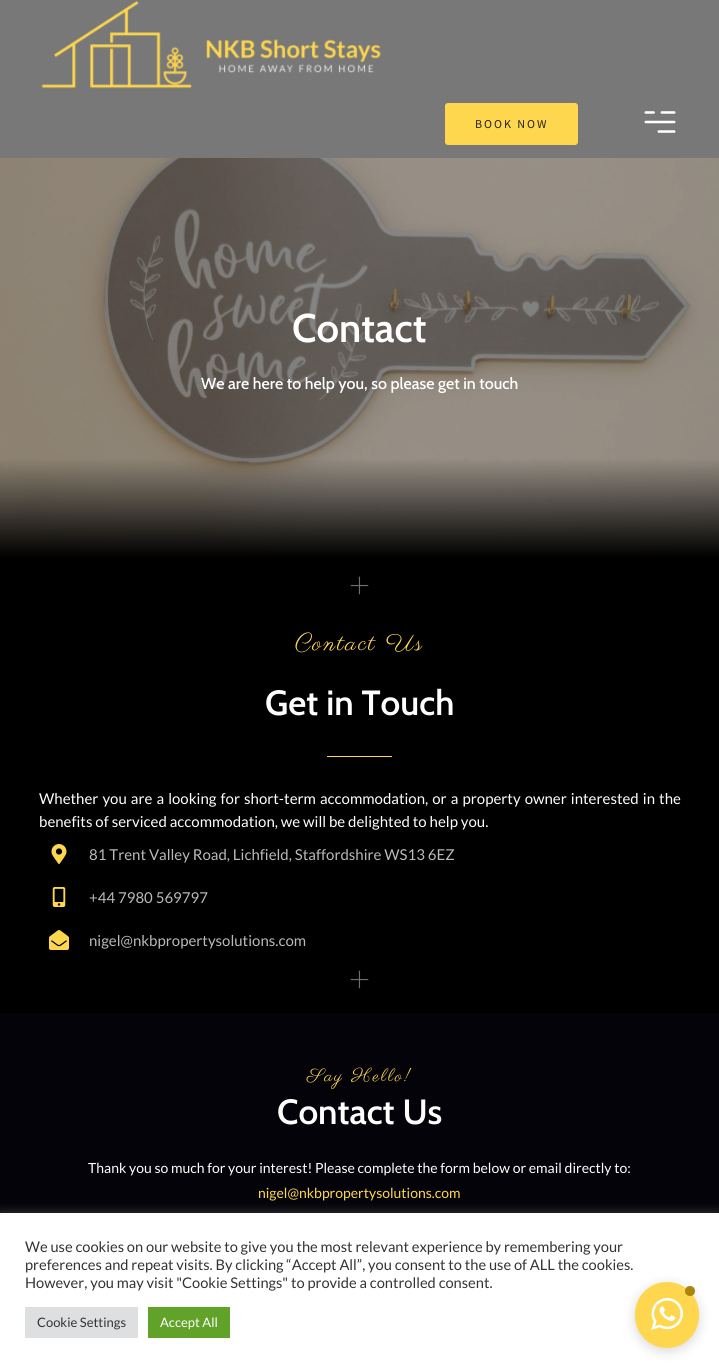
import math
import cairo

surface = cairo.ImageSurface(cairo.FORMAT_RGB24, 719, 1368)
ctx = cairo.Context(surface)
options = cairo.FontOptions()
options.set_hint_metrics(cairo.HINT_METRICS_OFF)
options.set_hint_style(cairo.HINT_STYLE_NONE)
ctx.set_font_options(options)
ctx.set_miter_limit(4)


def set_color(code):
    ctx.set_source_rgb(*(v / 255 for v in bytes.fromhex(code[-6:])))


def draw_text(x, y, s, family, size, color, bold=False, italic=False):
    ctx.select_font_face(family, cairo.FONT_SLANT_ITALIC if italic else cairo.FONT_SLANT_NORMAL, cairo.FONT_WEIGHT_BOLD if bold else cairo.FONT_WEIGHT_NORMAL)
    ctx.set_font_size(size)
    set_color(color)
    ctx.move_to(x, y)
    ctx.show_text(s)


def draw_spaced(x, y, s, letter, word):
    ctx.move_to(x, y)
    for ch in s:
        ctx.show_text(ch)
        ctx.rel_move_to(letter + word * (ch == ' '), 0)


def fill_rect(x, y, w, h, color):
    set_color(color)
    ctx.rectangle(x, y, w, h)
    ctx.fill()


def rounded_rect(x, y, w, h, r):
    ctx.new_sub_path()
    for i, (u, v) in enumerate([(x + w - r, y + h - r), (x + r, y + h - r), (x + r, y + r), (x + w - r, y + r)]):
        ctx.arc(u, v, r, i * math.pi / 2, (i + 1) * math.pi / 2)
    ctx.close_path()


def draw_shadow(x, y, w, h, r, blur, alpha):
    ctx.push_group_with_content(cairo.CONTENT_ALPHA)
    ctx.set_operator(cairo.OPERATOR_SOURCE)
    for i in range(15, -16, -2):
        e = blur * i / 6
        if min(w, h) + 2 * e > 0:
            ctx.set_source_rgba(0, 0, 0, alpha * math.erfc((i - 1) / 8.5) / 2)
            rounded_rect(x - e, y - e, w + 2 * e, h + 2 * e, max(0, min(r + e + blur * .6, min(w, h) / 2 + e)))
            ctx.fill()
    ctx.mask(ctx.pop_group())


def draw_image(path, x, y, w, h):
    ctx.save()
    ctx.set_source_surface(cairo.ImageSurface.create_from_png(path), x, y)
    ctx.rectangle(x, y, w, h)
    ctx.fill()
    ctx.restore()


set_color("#000000")
ctx.paint()
fill_rect(0, 0, 719, 158, "#787878")
draw_image("assets/img1.png", 41, 1, 340, 88)
set_color("#fed74f")
rounded_rect(445, 103, 133, 42, 3)
ctx.fill()
ctx.select_font_face("Source Sans Pro")
ctx.set_font_size(12)
set_color("#212121")
draw_spaced(475, 128, "BOOK NOW", 2, 0)
draw_image("assets/img2.png", 644, 111, 32, 22)
draw_image("assets/img3.png", 0, 158, 719, 400)
draw_text(292, 342, "Contact", "Cabin SemiBold", 40, "#ffffff")
draw_text(201, 389, "We are here to help you, so please get in touch", "Cabin Medium", 16, "#ffffff")
draw_image("assets/img4.png", 350, 576, 19, 19)
ctx.select_font_face("Parisienne")
ctx.set_font_size(24)
set_color("#fed74f")
draw_spaced(295, 650, "Contact Us", 2, 0)
draw_text(265, 715, "Get in Touch", "Cabin SemiBold", 35, "#ffffff")
fill_rect(327, 756, 65, 1, "#fed74f")
ctx.select_font_face("Lato")
ctx.set_font_size(15)
set_color("#ffffff")
draw_spaced(39, 804, "Whether you are a looking for short-term accommodation, or a property owner interested in the", 0, 1.2)
draw_text(39, 827, "benefits of serviced accommodation, we will be delighted to help you.", "Lato", 15, "#ffffff")
draw_image("assets/img5.png", 51, 844, 16, 20)
draw_text(89, 860, "81 Trent Valley Road, Lichfield, Staffordshire WS13 6EZ", "Lato", 15, "#bababa")
draw_image("assets/img6.png", 52, 887, 14, 20)
draw_text(89, 903, "+44 7980 569797", "Lato", 15, "#bababa")
draw_image("assets/img7.png", 49, 930, 20, 20)
draw_text(89, 946, "nigel@nkbpropertysolutions.com", "Lato", 15, "#bababa")
draw_image("assets/img4.png", 350, 970, 19, 19)
fill_rect(0, 1013, 719, 200, "#030309")
ctx.select_font_face("Parisienne")
ctx.set_font_size(18)
set_color("#fed74f")
draw_spaced(307, 1081, "Say Hello!", 2, 0)
draw_text(277, 1124, "Contact Us", "Cabin SemiBold", 35, "#ffffff")
draw_text(88, 1173, "Thank you so much for your interest! Please complete the form below or email directly to:", "Lato", 14, "#ffffff")
draw_text(258, 1198, "nigel@nkbpropertysolutions.com", "Lato", 14, "#fed74f")
set_color("#acabab")
draw_shadow(0, 1212, 719, 155, 0, 5, 0.3)
fill_rect(0, 1213, 719, 155, "#ffffff")
draw_text(25, 1252, "We use cookies on our website to give you the most relevant experience by remembering your", "Lato", 14.65, "#333333")
draw_text(25, 1270, "preferences and repeat visits. By clicking “Accept All”, you consent to the use of ALL the cookies.", "Lato", 14.65, "#333333")
draw_text(25, 1288, "However, you may visit \"Cookie Settings\" to provide a controlled consent.", "Lato", 14.65, "#333333")
fill_rect(25, 1307, 113, 31, "#dedfe0")
draw_text(37, 1327, "Cookie Settings", "Lato", 13, "#333333")
fill_rect(148, 1307, 82, 31, "#61a229")
draw_text(160, 1327, "Accept All", "Lato", 13, "#ffffff")
set_color("#000000")
draw_shadow(635, 1285, 64, 66, 32, 6, 0.15)
set_color("#fed74f")
rounded_rect(635, 1282, 64, 66, 32)
ctx.fill()
set_color("#aa860a")
ctx.arc(690, 1291, 5, 0, 2 * math.pi)
ctx.fill()
draw_image("assets/img8.png", 651, 1298, 32, 32)
surface.write_to_png("output.png")
